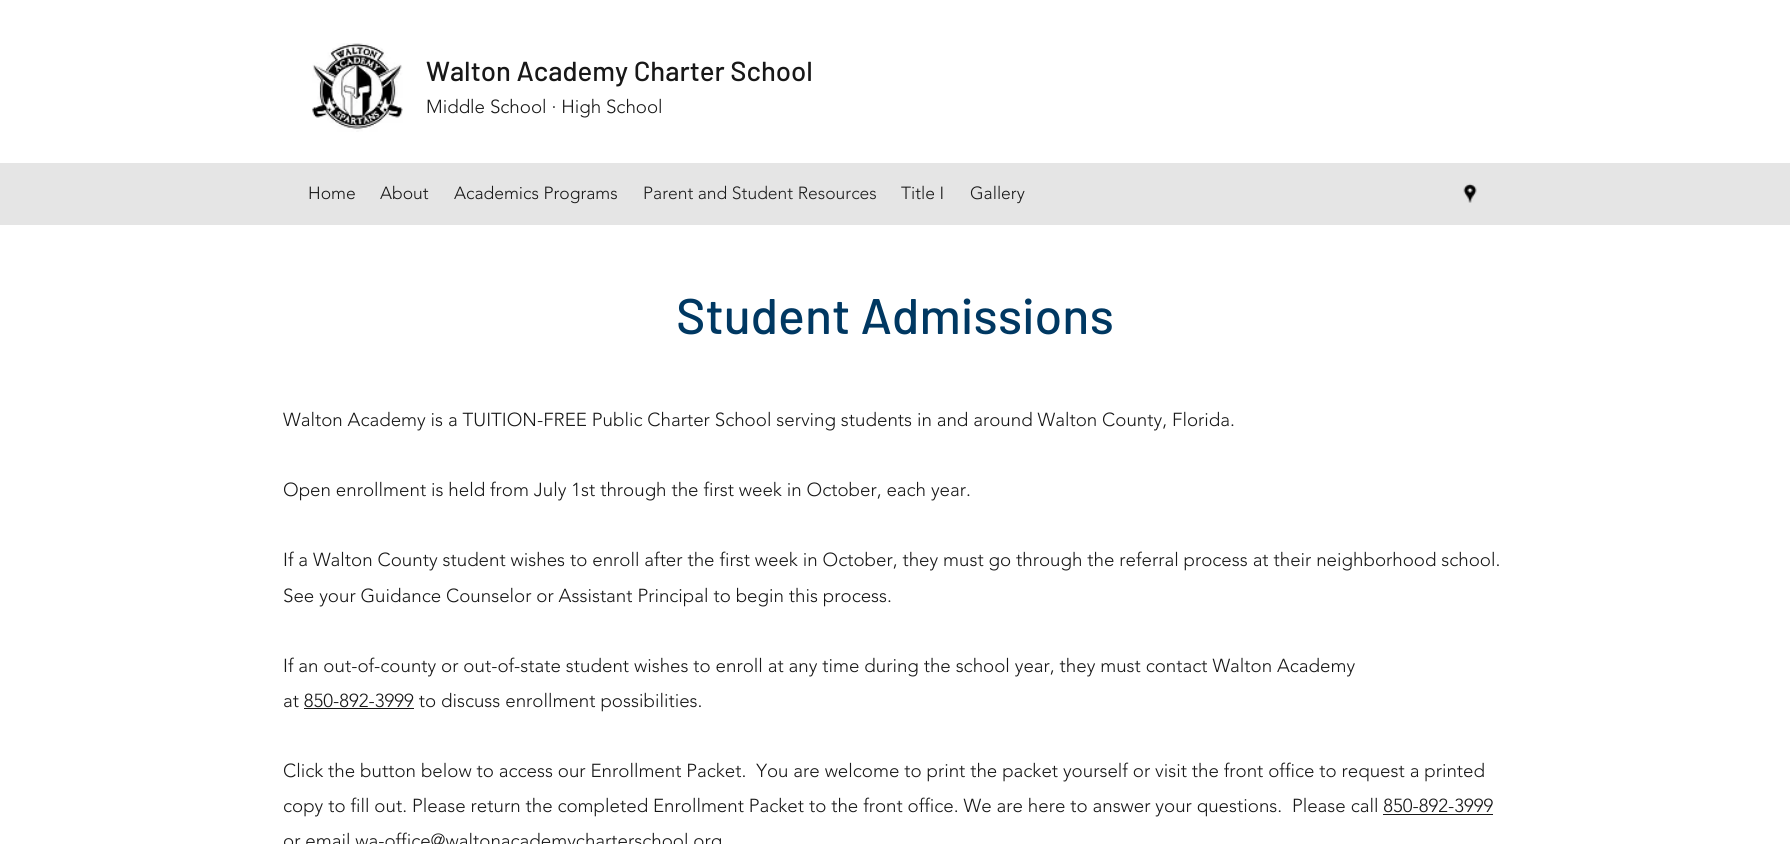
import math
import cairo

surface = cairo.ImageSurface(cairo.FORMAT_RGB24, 1790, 844)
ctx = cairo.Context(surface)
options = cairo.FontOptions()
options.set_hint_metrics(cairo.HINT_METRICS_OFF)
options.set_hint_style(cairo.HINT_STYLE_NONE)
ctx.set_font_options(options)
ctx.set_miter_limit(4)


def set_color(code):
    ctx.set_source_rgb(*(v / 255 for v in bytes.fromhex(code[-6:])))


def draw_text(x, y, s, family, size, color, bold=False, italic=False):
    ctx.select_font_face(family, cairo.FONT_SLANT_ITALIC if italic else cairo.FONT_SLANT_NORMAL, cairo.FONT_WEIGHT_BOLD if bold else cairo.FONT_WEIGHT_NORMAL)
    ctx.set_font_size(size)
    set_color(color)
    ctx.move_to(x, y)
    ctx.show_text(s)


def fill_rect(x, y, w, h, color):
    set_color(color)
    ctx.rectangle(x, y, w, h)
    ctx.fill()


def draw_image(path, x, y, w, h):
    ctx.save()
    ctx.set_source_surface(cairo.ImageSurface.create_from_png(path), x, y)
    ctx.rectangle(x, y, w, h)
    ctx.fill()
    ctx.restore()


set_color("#ffffff")
ctx.paint()
draw_image("assets/img1.png", 312, 43, 91, 89)
draw_text(426, 81, "Walton Academy Charter School", "Barlow Medium", 27.5, "#181818")
draw_text(426, 113, "Middle School · High School", "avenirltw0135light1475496 Light", 18.75, "#181818")
fill_rect(0, 163, 1790, 62, "#e5e5e5")
draw_text(308, 199, "Home", "avenirltw0135light1475496 Light", 17.5, "#181818")
draw_text(380, 199, "About", "avenirltw0135light1475496 Light", 17.5, "#181818")
draw_text(454, 199, "Academics Programs", "avenirltw0135light1475496 Light", 17.5, "#181818")
draw_text(643, 199, "Parent and Student Resources", "avenirltw0135light1475496 Light", 17.5, "#1e1e1e")
draw_text(901, 199, "Title I", "avenirltw0135light1475496 Light", 17.5, "#181818")
draw_text(970, 199, "Gallery", "avenirltw0135light1475496 Light", 17.5, "#181818")
draw_image("assets/img2.png", 1463, 183, 14, 20)
draw_text(676, 334, "Student Admissions", "Barlow Medium", 50, "#003862")
draw_text(283, 426, "Walton Academy is a TUITION-FREE Public Charter School serving students in and around Walton County, Florida.", "avenirltw0135light1475496 Light", 18.75, "#181818")
draw_text(283, 496, "Open enrollment is held from July 1st through the first week in October, each year.", "avenirltw0135light1475496 Light", 18.75, "#181818")
draw_text(283, 566, "If a Walton County student wishes to enroll after the first week in October, they must go through the referral process at their neighborhood school.", "avenirltw0135light1475496 Light", 18.75, "#181818")
draw_text(283, 602, "See your Guidance Counselor or Assistant Principal to begin this process.", "avenirltw0135light1475496 Light", 18.75, "#181818")
draw_text(283, 672, "If an out-of-county or out-of-state student wishes to enroll at any time during the school year, they must contact Walton Academy", "avenirltw0135light1475496 Light", 18.75, "#181818")
draw_text(283, 707, "at 850-892-3999 to discuss enrollment possibilities.", "avenirltw0135light1475496 Light", 18.75, "#181818")
fill_rect(304, 708, 110, 1, "#181818")
draw_text(283, 777, "Click the button below to access our Enrollment Packet.  You are welcome to print the packet yourself or visit the front office to request a printed", "avenirltw0135light1475496 Light", 18.75, "#181818")
draw_text(283, 812, "copy to fill out. Please return the completed Enrollment Packet to the front office. We are here to answer your questions.  Please call 850-892-3999", "avenirltw0135light1475496 Light", 18.75, "#181818")
fill_rect(1383, 814, 110, 1, "#181818")
draw_text(283, 847, "or email wa-office@waltonacademycharterschool.org", "avenirltw0135light1475496 Light", 18.75, "#181818")
surface.write_to_png("output.png")
